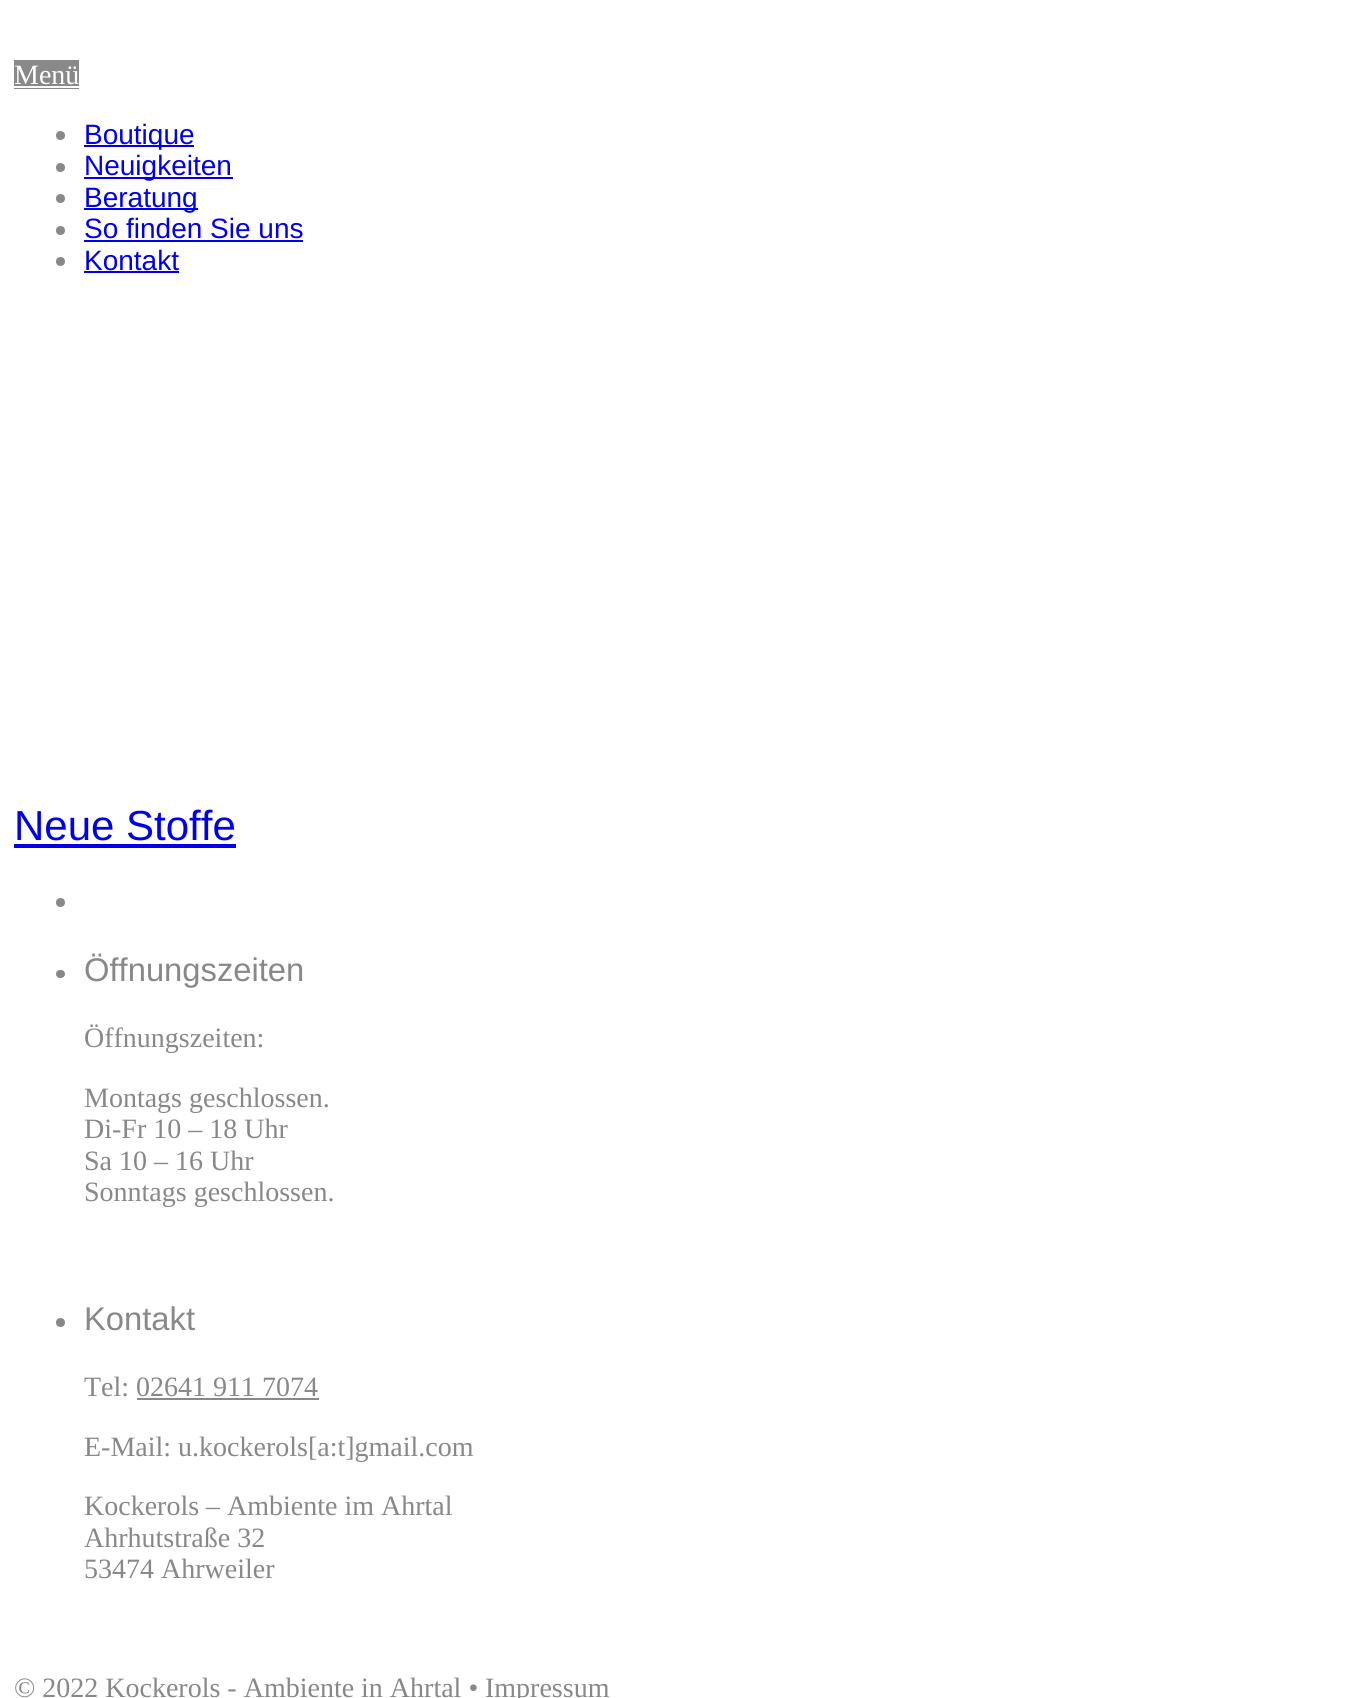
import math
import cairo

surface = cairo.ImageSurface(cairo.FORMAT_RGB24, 1360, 1698)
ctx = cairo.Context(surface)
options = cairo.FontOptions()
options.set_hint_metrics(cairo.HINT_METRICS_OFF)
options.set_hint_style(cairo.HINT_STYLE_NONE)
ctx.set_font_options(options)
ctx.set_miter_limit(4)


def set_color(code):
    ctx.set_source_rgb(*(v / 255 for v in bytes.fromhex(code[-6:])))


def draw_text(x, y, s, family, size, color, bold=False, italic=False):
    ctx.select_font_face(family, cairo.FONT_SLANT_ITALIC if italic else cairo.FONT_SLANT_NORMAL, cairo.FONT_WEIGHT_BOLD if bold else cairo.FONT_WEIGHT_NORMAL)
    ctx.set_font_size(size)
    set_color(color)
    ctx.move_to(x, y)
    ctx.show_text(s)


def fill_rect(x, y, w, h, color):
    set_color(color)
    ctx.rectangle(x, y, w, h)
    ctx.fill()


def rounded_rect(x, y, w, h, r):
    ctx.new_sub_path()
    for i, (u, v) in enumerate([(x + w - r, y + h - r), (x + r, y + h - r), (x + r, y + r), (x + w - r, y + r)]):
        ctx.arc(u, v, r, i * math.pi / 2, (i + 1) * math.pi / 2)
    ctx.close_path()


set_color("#ffffff")
ctx.paint()
fill_rect(14, 60, 65, 29, "#898989")
draw_text(14, 84, "Menü", "Liberation Serif", 28, "#ffffff")
fill_rect(14, 86, 65, 2, "#ffffff")
set_color("#888888")
ctx.new_path()
ctx.arc(60.5, 135.5, 4.5, 0, 2 * math.pi)
ctx.fill()
fill_rect(84, 145, 110, 2, "#0000ee")
draw_text(84, 144, "Boutique", "Liberation Sans", 28, "#0000ee")
set_color("#888888")
ctx.new_path()
ctx.arc(60.5, 167.5, 4.5, 0, 2 * math.pi)
ctx.fill()
fill_rect(84, 177, 149, 2, "#0000ee")
draw_text(84, 175, "Neuigkeiten", "Liberation Sans", 28, "#0000ee")
set_color("#888888")
ctx.new_path()
ctx.arc(60.5, 198.5, 4.5, 0, 2 * math.pi)
ctx.fill()
fill_rect(84, 208, 114, 2, "#0000ee")
draw_text(84, 207, "Beratung", "Liberation Sans", 28, "#0000ee")
set_color("#888888")
ctx.new_path()
ctx.arc(60.5, 230.5, 4.5, 0, 2 * math.pi)
ctx.fill()
draw_text(84, 238, "So finden Sie uns", "Liberation Sans", 28, "#0000ee")
fill_rect(84, 240, 219, 2, "#0000ee")
set_color("#888888")
ctx.new_path()
ctx.arc(60.5, 261.5, 4.5, 0, 2 * math.pi)
ctx.fill()
draw_text(84, 270, "Kontakt", "Liberation Sans", 28, "#0000ee")
fill_rect(84, 271, 95, 2, "#0000ee")
draw_text(14, 840, "Neue Stoffe", "Liberation Sans", 42, "#0000ee")
fill_rect(14, 844, 222, 4, "#0000ee")
set_color("#888888")
ctx.new_path()
ctx.arc(60.5, 902.5, 4.5, 0, 2 * math.pi)
ctx.fill()
rounded_rect(56, 970, 9, 8, 4)
ctx.fill()
draw_text(84, 981, "Öffnungszeiten", "Liberation Sans", 32.75, "#888888")
draw_text(84, 1047, "Öffnungszeiten:", "Liberation Serif", 28, "#888888")
draw_text(84, 1107, "Montags geschlossen.", "Liberation Serif", 28, "#888888")
draw_text(84, 1138, "Di-Fr 10 – 18 Uhr", "Liberation Serif", 28, "#888888")
draw_text(84, 1170, "Sa 10 – 16 Uhr", "Liberation Serif", 28, "#888888")
draw_text(84, 1201, "Sonntags geschlossen.", "Liberation Serif", 28, "#888888")
ctx.new_path()
ctx.arc(60.5, 1322.5, 4.5, 0, 2 * math.pi)
ctx.fill()
draw_text(84, 1330, "Kontakt", "Liberation Sans", 32.75, "#888888")
draw_text(84, 1396, "Tel:", "Liberation Serif", 28, "#888888")
draw_text(136, 1396, "02641 911 7074", "Liberation Serif", 28, "#888888")
fill_rect(137, 1398, 182, 2, "#898989")
draw_text(84, 1456, "E-Mail: u.kockerols[a:t]gmail.com", "Liberation Serif", 28, "#888888")
draw_text(84, 1515, "Kockerols – Ambiente im Ahrtal", "Liberation Serif", 28, "#888888")
draw_text(84, 1547, "Ahrhutstraße 32", "Liberation Serif", 28, "#888888")
draw_text(84, 1578, "53474 Ahrweiler", "Liberation Serif", 28, "#888888")
draw_text(14, 1697, "© 2022 Kockerols - Ambiente in Ahrtal •", "Liberation Serif", 28, "#888888")
draw_text(485, 1697, "Impressum", "Liberation Serif", 28, "#888888")
surface.write_to_png("output.png")
